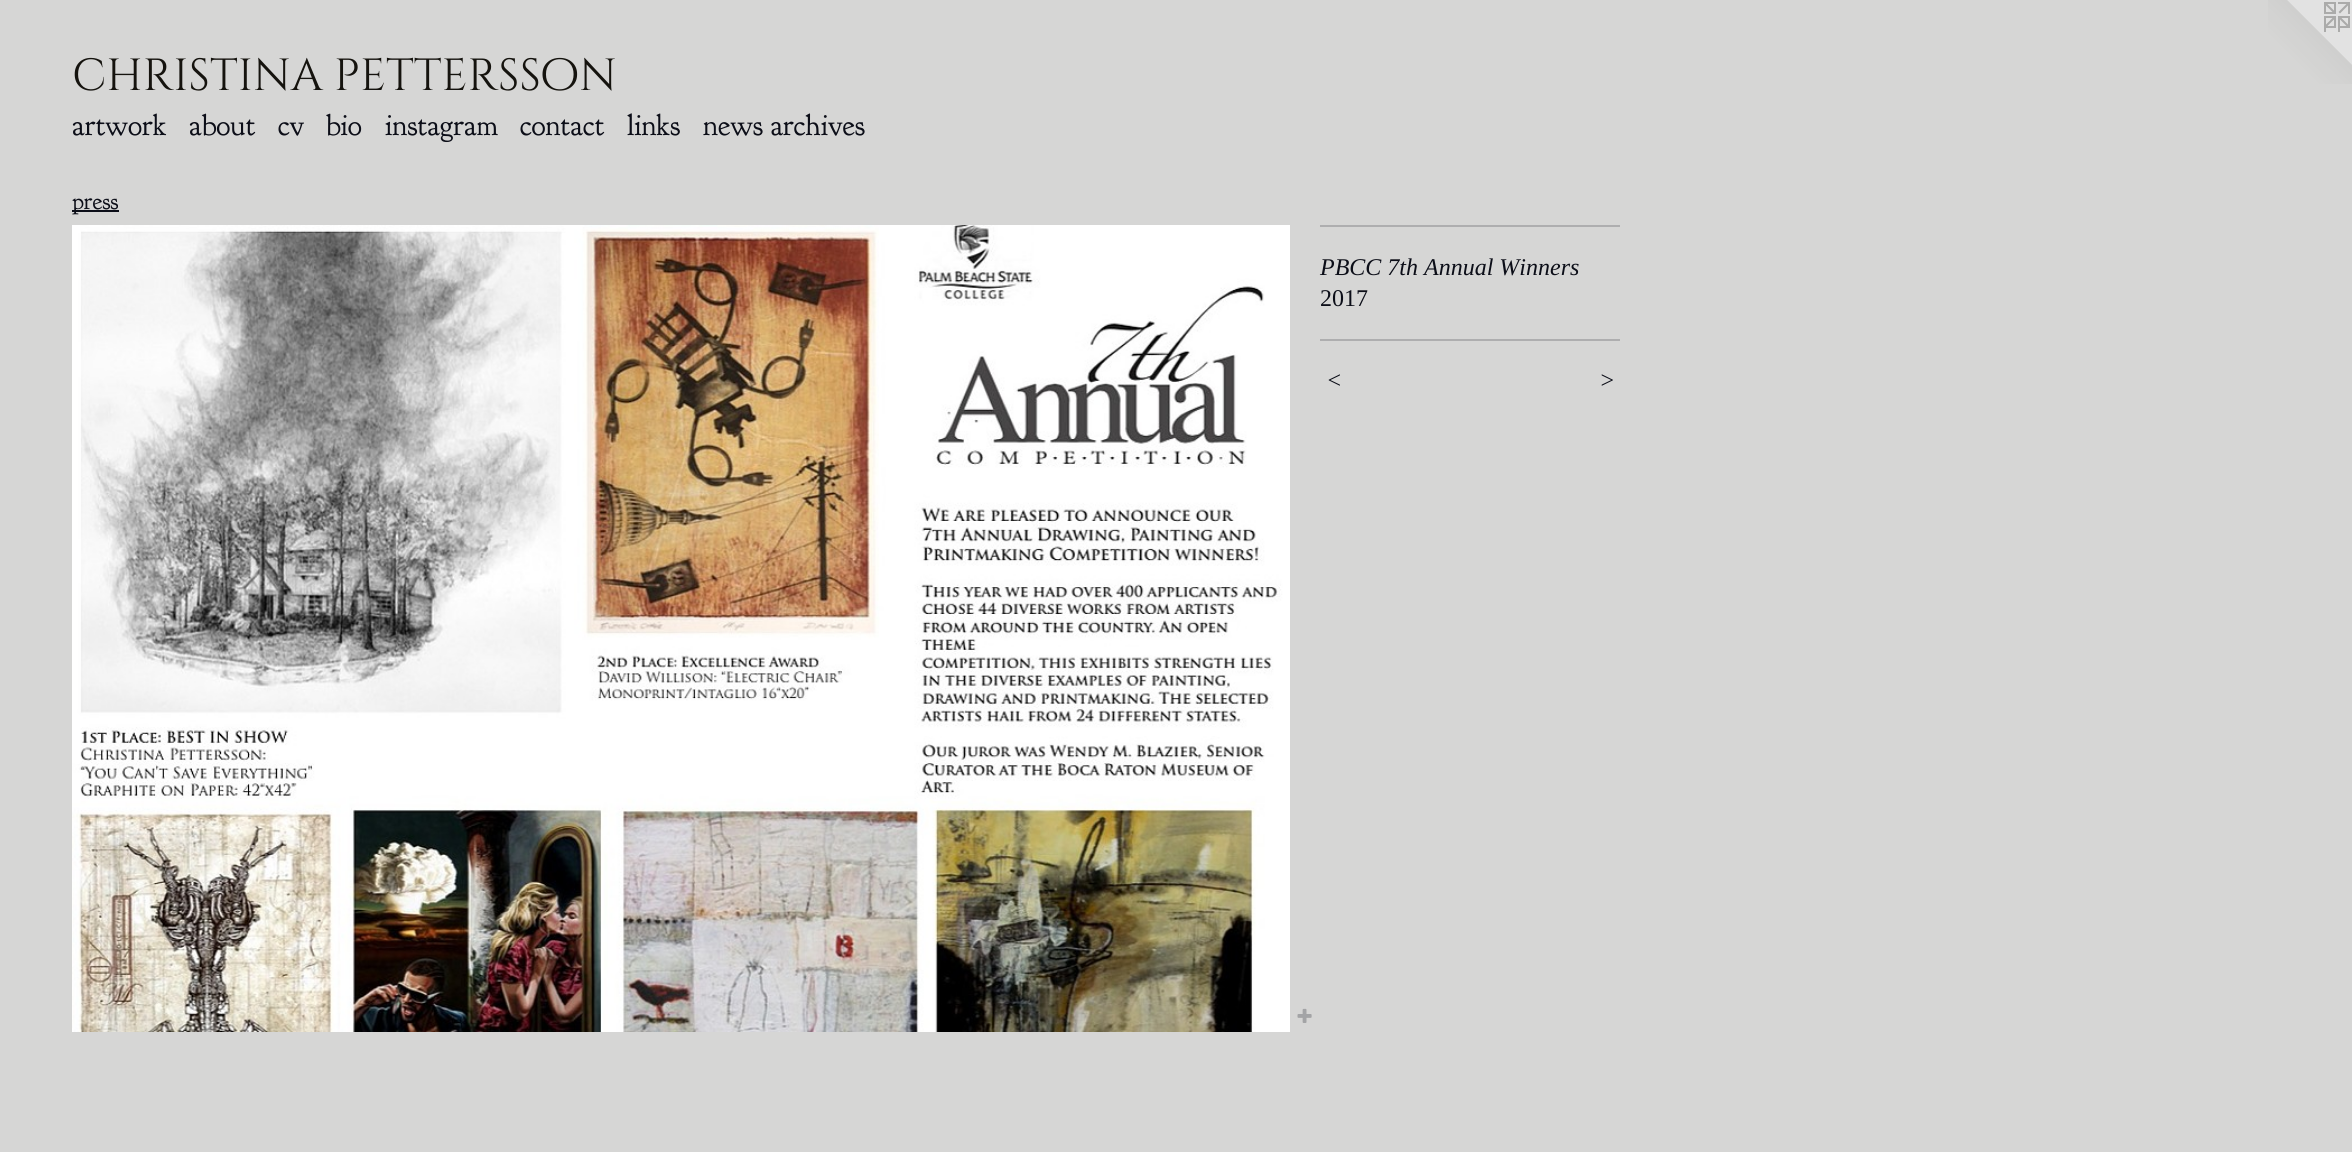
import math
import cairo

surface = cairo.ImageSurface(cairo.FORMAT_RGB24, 2352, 1152)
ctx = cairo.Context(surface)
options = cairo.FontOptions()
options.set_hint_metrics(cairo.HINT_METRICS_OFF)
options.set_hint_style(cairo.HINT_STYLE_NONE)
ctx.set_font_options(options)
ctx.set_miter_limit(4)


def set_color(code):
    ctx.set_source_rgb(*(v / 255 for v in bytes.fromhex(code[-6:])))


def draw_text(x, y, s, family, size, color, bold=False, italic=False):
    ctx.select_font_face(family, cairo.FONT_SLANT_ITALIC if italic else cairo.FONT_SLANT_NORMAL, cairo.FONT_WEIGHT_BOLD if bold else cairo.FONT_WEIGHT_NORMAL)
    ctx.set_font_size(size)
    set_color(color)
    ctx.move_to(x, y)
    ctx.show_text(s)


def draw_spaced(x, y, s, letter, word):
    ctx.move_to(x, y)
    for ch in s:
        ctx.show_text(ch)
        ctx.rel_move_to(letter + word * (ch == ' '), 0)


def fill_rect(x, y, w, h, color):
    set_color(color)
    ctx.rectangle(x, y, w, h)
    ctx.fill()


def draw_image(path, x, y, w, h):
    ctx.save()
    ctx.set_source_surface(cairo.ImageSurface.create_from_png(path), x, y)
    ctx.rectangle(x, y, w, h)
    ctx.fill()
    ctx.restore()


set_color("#d6d6d5")
ctx.paint()
draw_text(72, 90, "christina pettersson", "Cinzel Decorative", 45, "#15130e")
draw_image("assets/img1.png", 2268, 0, 84, 84)
draw_text(72, 135, "artwork", "Goudy Bookletter 1911", 30, "#0c0e18")
draw_text(189, 135, "about", "Goudy Bookletter 1911", 30, "#0c0e18")
draw_text(278, 135, "cv", "Goudy Bookletter 1911", 30, "#0c0e18")
draw_text(326, 135, "bio", "Goudy Bookletter 1911", 30, "#0c0e18")
draw_text(385, 135, "instagram", "Goudy Bookletter 1911", 30, "#0c0e18")
draw_text(520, 135, "contact", "Goudy Bookletter 1911", 30, "#0c0e18")
draw_text(627, 135, "links", "Goudy Bookletter 1911", 30, "#0c0e18")
draw_text(703, 135, "news archives", "Goudy Bookletter 1911", 30, "#0c0e18")
fill_rect(72, 210, 47, 2, "#0c0e18")
draw_text(72, 209, "press", "Goudy Bookletter 1911", 24, "#0c0e18")
draw_image("assets/img2.png", 72, 225, 1218, 807)
draw_image("assets/img3.png", 1297, 1008, 15, 15)
fill_rect(1320, 225, 300, 2, "#aeaeaf")
draw_text(1320, 275, "PBCC 7th Annual Winners", "Liberation Serif", 24, "#0c0e18", italic=True)
draw_text(1320, 306, "2017", "Liberation Serif", 24, "#0c0e18")
fill_rect(1320, 339, 300, 2, "#aeaeaf")
ctx.select_font_face("Liberation Serif", cairo.FONT_SLANT_ITALIC)
set_color("#0c0e18")
draw_spaced(1326, 388, "<", 2, 0)
draw_spaced(1599, 388, ">", 2, 0)
surface.write_to_png("output.png")
